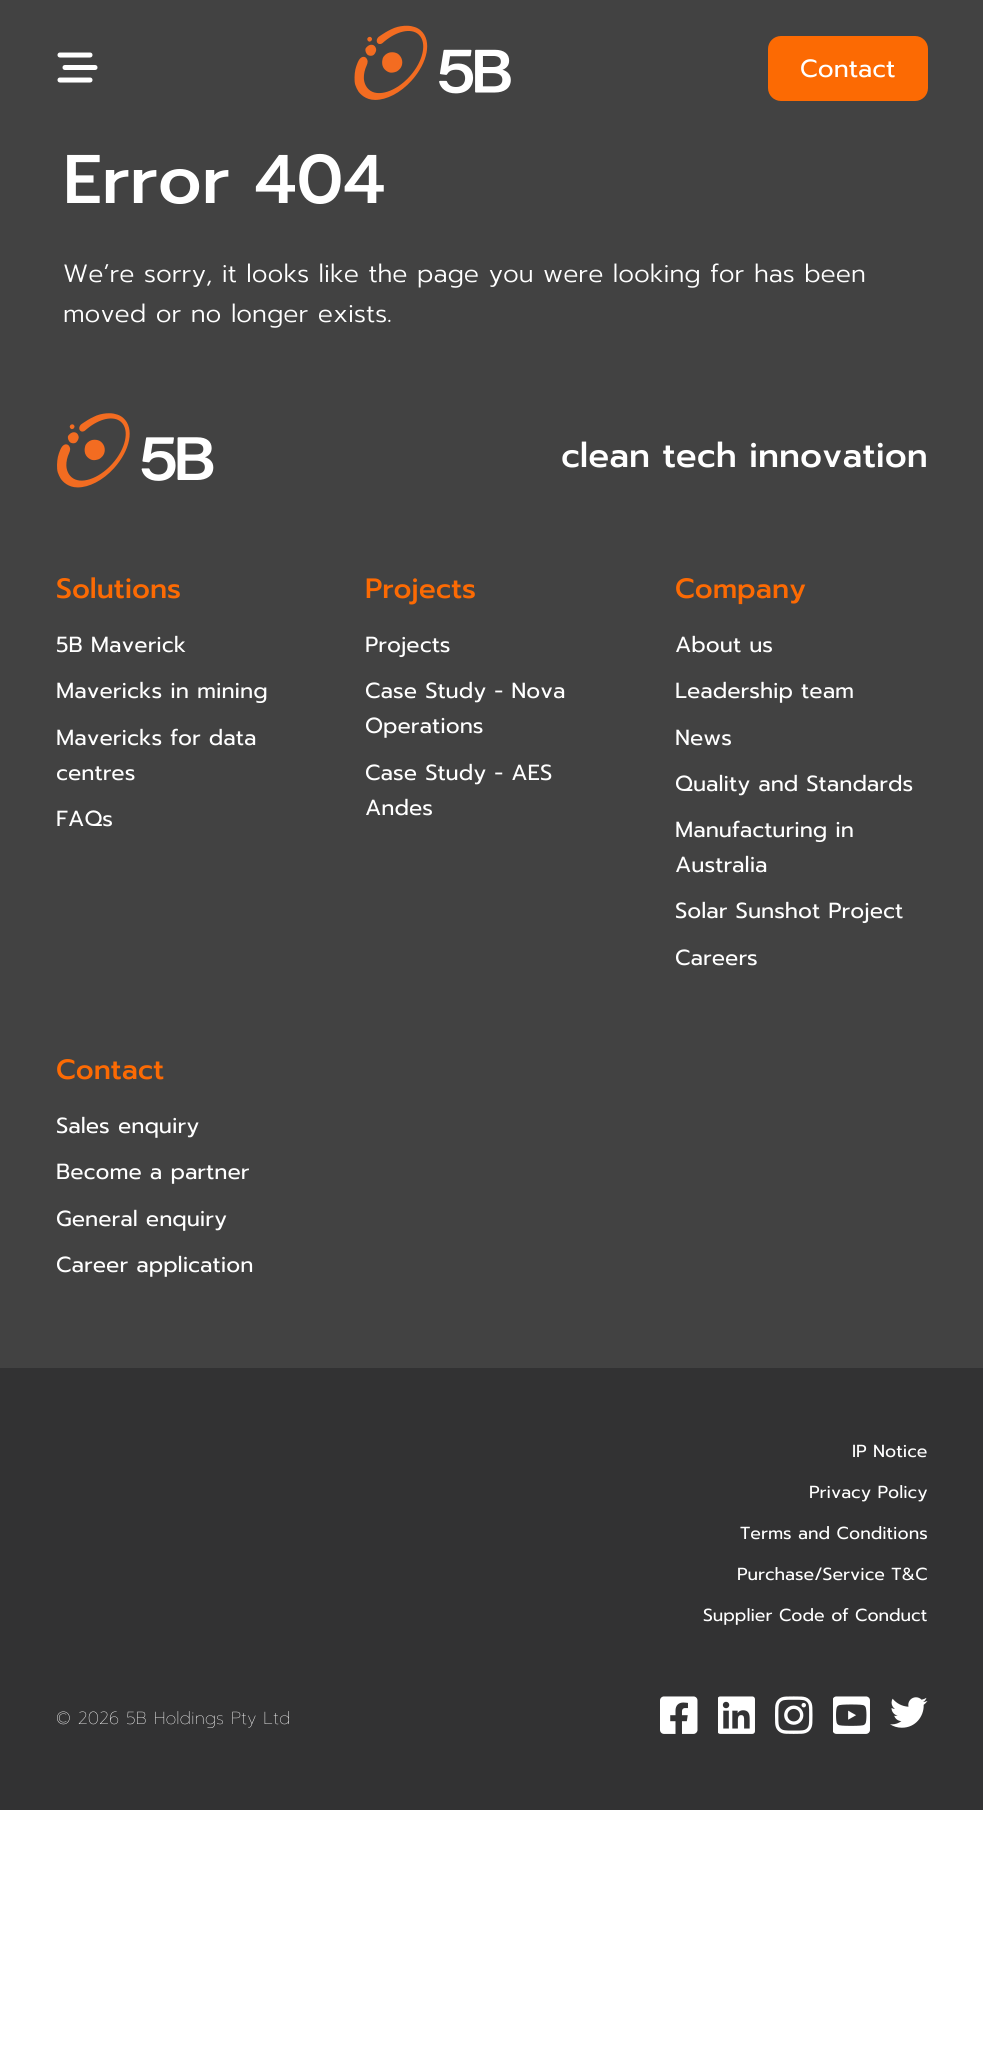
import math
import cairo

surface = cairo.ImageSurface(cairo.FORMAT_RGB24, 983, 2062)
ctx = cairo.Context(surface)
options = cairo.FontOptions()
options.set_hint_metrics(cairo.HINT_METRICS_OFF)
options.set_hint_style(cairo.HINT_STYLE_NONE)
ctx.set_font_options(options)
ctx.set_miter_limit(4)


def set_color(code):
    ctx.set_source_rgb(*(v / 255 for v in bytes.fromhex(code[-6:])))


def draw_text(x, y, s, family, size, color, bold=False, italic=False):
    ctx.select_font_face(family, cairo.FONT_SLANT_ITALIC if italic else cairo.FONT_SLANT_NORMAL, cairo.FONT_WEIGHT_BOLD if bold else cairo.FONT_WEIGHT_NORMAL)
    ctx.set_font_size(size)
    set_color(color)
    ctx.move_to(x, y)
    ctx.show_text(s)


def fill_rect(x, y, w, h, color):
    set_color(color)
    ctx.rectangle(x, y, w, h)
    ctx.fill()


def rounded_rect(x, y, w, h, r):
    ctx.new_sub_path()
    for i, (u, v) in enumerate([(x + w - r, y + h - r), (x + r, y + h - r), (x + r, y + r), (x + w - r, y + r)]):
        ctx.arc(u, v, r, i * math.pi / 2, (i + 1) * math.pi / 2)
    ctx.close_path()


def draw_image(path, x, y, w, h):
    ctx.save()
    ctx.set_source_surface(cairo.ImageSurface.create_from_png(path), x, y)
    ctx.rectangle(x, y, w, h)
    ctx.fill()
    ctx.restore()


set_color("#ffffff")
ctx.paint()
fill_rect(0, 0, 983, 1368, "#424242")
draw_image("assets/img1.png", 57, 52, 41, 31)
draw_image("assets/img2.png", 354, 25, 157, 75)
set_color("#fc6a03")
rounded_rect(768, 36, 160, 65, 13)
ctx.fill()
draw_text(800, 77, "Contact", "Prompt", 25, "#ffffff")
draw_text(63, 203, "Error 404", "Prompt Medium", 68.75, "#ffffff")
draw_text(63, 282, "We’re sorry, it looks like the page you were looking for has been", "Prompt Light", 25, "#ffffff")
draw_text(63, 322, "moved or no longer exists.", "Prompt Light", 25, "#ffffff")
draw_image("assets/img3.png", 57, 413, 157, 75)
draw_text(561, 467, "clean tech innovation", "Prompt Medium", 34.4, "#ffffff")
draw_text(56, 598, "Solutions", "Prompt Medium", 28, "#fc6a03")
draw_text(56, 652, "5B Maverick", "Prompt", 21.9, "#ffffff")
draw_text(56, 698, "Mavericks in mining", "Prompt", 21.9, "#ffffff")
draw_text(56, 745, "Mavericks for data", "Prompt", 21.9, "#ffffff")
draw_text(56, 780, "centres", "Prompt", 21.9, "#ffffff")
draw_text(56, 826, "FAQs", "Prompt", 21.9, "#ffffff")
draw_text(365, 598, "Projects", "Prompt Medium", 28, "#fc6a03")
draw_text(365, 652, "Projects", "Prompt", 21.9, "#ffffff")
draw_text(365, 698, "Case Study - Nova", "Prompt", 21.9, "#ffffff")
draw_text(365, 733, "Operations", "Prompt", 21.9, "#ffffff")
draw_text(365, 780, "Case Study - AES", "Prompt", 21.9, "#ffffff")
draw_text(365, 815, "Andes", "Prompt", 21.9, "#ffffff")
draw_text(675, 598, "Company", "Prompt Medium", 28, "#fc6a03")
draw_text(675, 652, "About us", "Prompt", 21.9, "#ffffff")
draw_text(675, 698, "Leadership team", "Prompt", 21.9, "#ffffff")
draw_text(675, 745, "News", "Prompt", 21.9, "#ffffff")
draw_text(675, 791, "Quality and Standards", "Prompt", 21.9, "#ffffff")
draw_text(675, 837, "Manufacturing in", "Prompt", 21.9, "#ffffff")
draw_text(675, 872, "Australia", "Prompt", 21.9, "#ffffff")
draw_text(675, 918, "Solar Sunshot Project", "Prompt", 21.9, "#ffffff")
draw_text(675, 965, "Careers", "Prompt", 21.9, "#ffffff")
draw_text(56, 1079, "Contact", "Prompt Medium", 28, "#fc6a03")
draw_text(56, 1133, "Sales enquiry", "Prompt", 21.9, "#ffffff")
draw_text(56, 1179, "Become a partner", "Prompt", 21.9, "#ffffff")
draw_text(56, 1226, "General enquiry", "Prompt", 21.9, "#ffffff")
draw_text(56, 1272, "Career application", "Prompt", 21.9, "#ffffff")
fill_rect(0, 1368, 983, 442, "#323233")
draw_text(852, 1457, "IP Notice", "Prompt", 17.5, "#ffffff")
draw_text(809, 1498, "Privacy Policy", "Prompt", 17.5, "#ffffff")
draw_text(740, 1539, "Terms and Conditions", "Prompt", 17.5, "#ffffff")
draw_text(737, 1580, "Purchase/Service T&C", "Prompt", 17.5, "#ffffff")
draw_text(703, 1621, "Supplier Code of Conduct", "Prompt", 17.5, "#ffffff")
draw_text(56, 1724, "© 2026 5B Holdings Pty Ltd", "Prompt Thin", 17.5, "#ffffff")
draw_image("assets/img4.png", 660, 1696, 38, 38)
draw_image("assets/img5.png", 718, 1696, 37, 38)
draw_image("assets/img6.png", 775, 1696, 38, 38)
draw_image("assets/img7.png", 833, 1696, 37, 38)
draw_image("assets/img8.png", 890, 1697, 38, 31)
surface.write_to_png("output.png")
